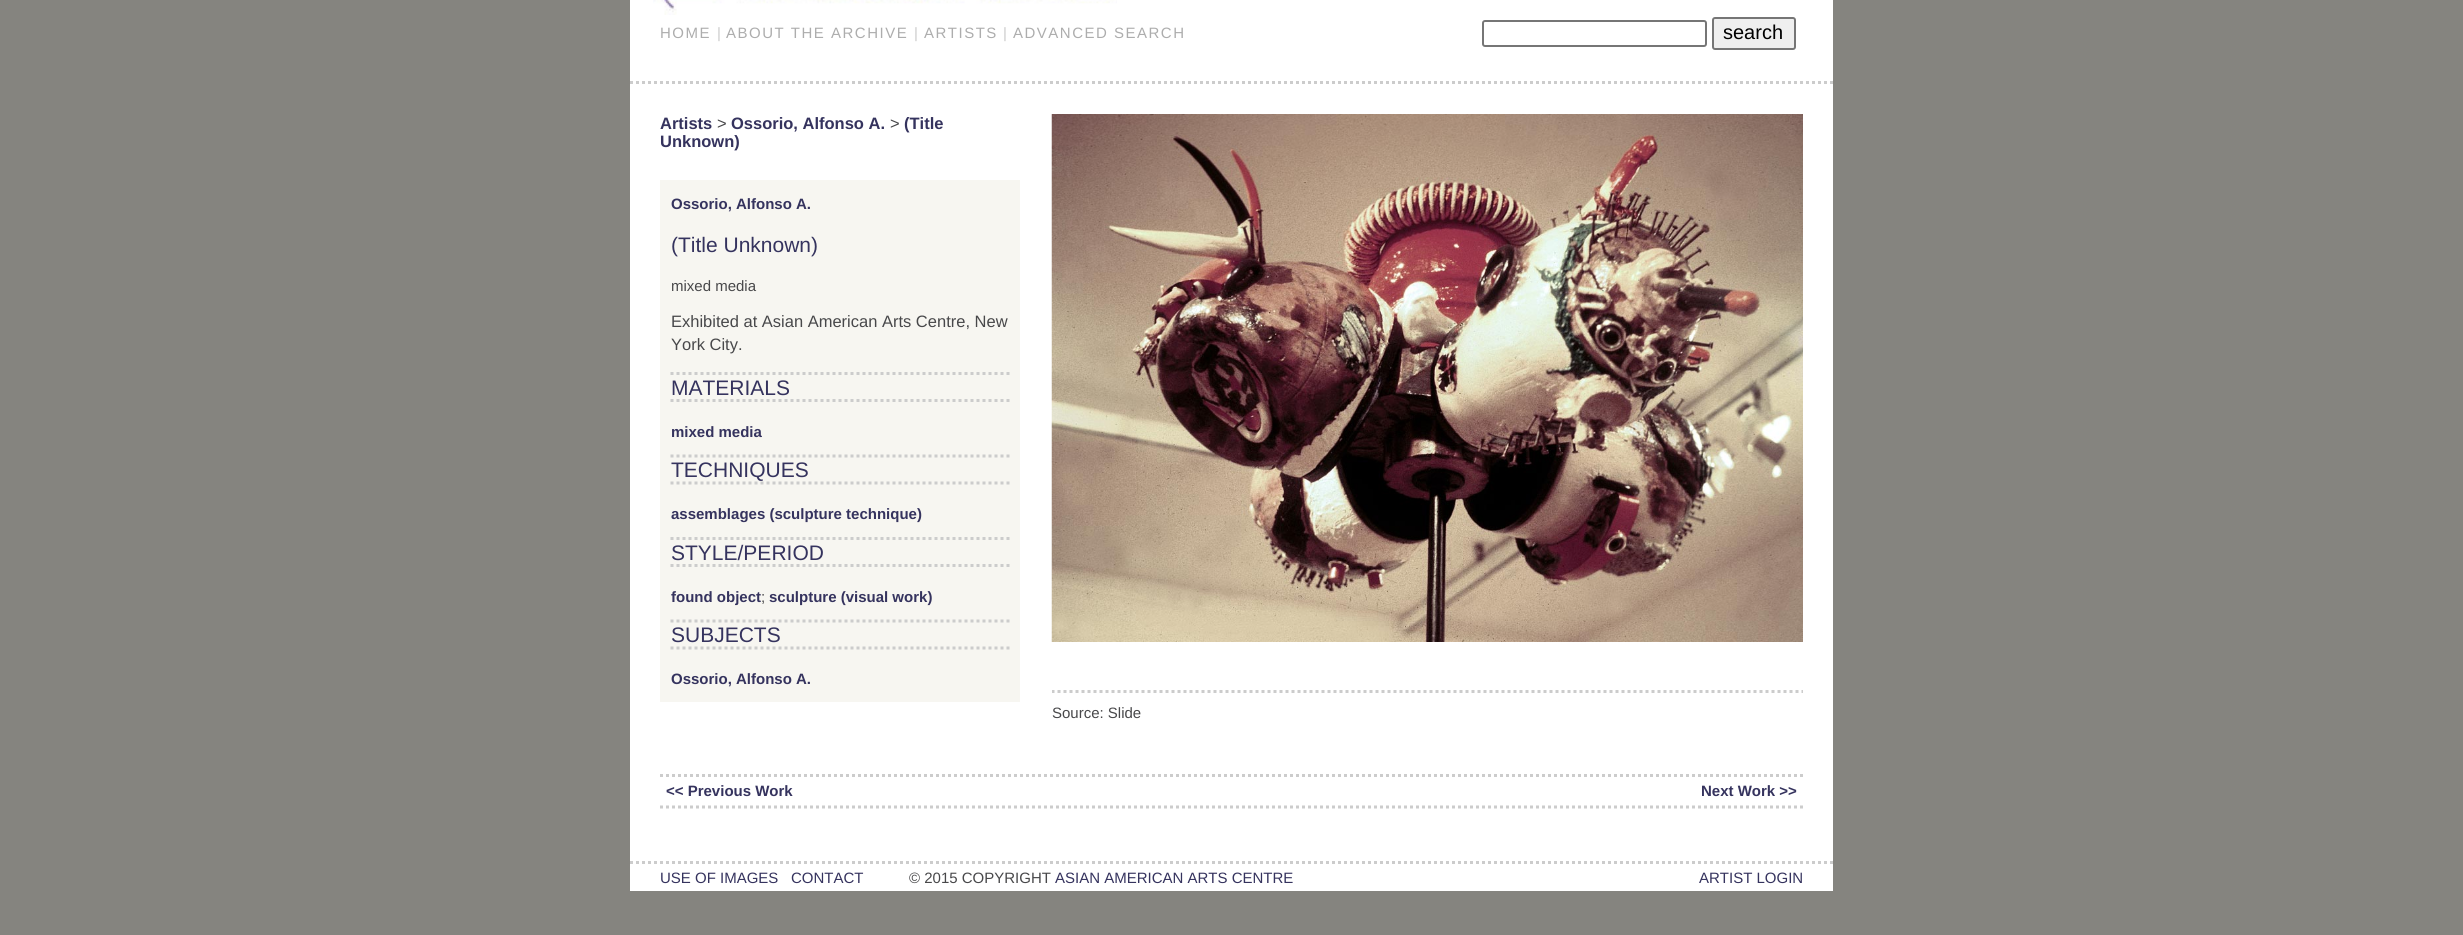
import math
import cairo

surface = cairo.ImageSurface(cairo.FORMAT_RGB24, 2463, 935)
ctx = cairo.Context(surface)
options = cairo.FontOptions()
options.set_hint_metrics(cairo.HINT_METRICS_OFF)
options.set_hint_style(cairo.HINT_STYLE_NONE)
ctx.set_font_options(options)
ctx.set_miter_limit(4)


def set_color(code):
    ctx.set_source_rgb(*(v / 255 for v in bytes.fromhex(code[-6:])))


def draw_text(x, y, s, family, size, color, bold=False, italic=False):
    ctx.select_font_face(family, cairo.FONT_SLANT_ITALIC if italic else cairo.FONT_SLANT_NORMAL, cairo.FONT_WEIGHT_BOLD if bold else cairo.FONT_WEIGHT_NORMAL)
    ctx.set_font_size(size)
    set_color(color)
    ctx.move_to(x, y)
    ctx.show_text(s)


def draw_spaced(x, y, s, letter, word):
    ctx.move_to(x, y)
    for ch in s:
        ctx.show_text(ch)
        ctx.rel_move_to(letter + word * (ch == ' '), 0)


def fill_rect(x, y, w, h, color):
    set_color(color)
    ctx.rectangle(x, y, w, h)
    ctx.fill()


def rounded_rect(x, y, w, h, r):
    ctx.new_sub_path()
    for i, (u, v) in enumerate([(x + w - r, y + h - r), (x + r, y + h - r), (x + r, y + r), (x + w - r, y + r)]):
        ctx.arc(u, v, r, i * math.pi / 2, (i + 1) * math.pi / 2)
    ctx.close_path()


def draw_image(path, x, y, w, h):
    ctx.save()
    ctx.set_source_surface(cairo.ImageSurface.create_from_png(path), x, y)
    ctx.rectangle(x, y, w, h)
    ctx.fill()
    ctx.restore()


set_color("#85847f")
ctx.paint()
fill_rect(630, 0, 1203, 891, "#ffffff")
draw_image("assets/img1.png", 653, 0, 464, 15)
ctx.select_font_face("Liberation Sans")
ctx.set_font_size(15)
set_color("#adadad")
draw_spaced(660, 38, "HOME", 1.5, 0)
set_color("#cccccc")
draw_spaced(717, 38, "|", 1.5, 0)
set_color("#adadad")
draw_spaced(726, 38, "ABOUT THE ARCHIVE", 1.5, 0)
set_color("#cccccc")
draw_spaced(914, 38, "|", 1.5, 0)
set_color("#adadad")
draw_spaced(924, 38, "ARTISTS", 1.5, 0)
set_color("#cccccc")
draw_spaced(1003, 38, "|", 1.5, 0)
set_color("#adadad")
draw_spaced(1013, 38, "ADVANCED SEARCH", 1.5, 0)
rounded_rect(1483, 21, 223, 25, 2)
set_color("#767676")
ctx.stroke()
set_color("#efefef")
rounded_rect(1713, 18, 82, 31, 2)
ctx.fill_preserve()
set_color("#767676")
ctx.stroke()
draw_text(1723, 39, "search", "Liberation Sans", 20, "#000000")
ctx.new_path()
ctx.move_to(630, 82.5)
ctx.line_to(1833, 82.5)
set_color("#cccccc")
ctx.set_line_width(3)
ctx.set_dash([3, 3])
ctx.stroke()
draw_text(660, 129, "Artists", "Liberation Sans", 16.5, "#35335e", bold=True)
draw_text(717, 129, ">", "Liberation Sans", 16.5, "#48484a")
draw_text(731, 129, "Ossorio, Alfonso A.", "Liberation Sans", 16.5, "#35335e", bold=True)
draw_text(890, 129, ">", "Liberation Sans", 16.5, "#48484a")
draw_text(904, 129, "(Title", "Liberation Sans", 16.5, "#35335e", bold=True)
draw_text(660, 147, "Unknown)", "Liberation Sans", 16.5, "#35335e", bold=True)
fill_rect(660, 180, 360, 522, "#f7f6f1")
draw_text(671, 209, "Ossorio, Alfonso A.", "Liberation Sans", 15, "#35335e", bold=True)
draw_text(671, 252, "(Title Unknown)", "Liberation Sans", 21, "#35335e")
draw_text(671, 291, "mixed media", "Liberation Sans", 15, "#48484a")
draw_text(671, 327, "Exhibited at Asian American Arts Centre, New", "Liberation Sans", 16.5, "#48484a")
draw_text(671, 350, "York City.", "Liberation Sans", 16.5, "#48484a")
ctx.new_path()
ctx.move_to(670.5, 373.5)
ctx.line_to(1009.5, 373.5)
set_color("#cccccc")
ctx.stroke()
ctx.new_path()
ctx.move_to(670.5, 400.5)
ctx.line_to(1009.5, 400.5)
ctx.stroke()
draw_text(671, 395, "MATERIALS", "Liberation Sans", 21, "#35335e")
draw_text(671, 437, "mixed media", "Liberation Sans", 15, "#35335e", bold=True)
ctx.new_path()
ctx.move_to(670.5, 456)
ctx.line_to(1009.5, 456)
set_color("#cccccc")
ctx.stroke()
ctx.new_path()
ctx.move_to(670.5, 483)
ctx.line_to(1009.5, 483)
ctx.stroke()
draw_text(671, 477, "TECHNIQUES", "Liberation Sans", 21, "#35335e")
draw_text(671, 519, "assemblages (sculpture technique)", "Liberation Sans", 15, "#35335e", bold=True)
ctx.new_path()
ctx.move_to(670.5, 538.5)
ctx.line_to(1009.5, 538.5)
set_color("#cccccc")
ctx.stroke()
ctx.new_path()
ctx.move_to(670.5, 565.5)
ctx.line_to(1009.5, 565.5)
ctx.stroke()
draw_text(671, 560, "STYLE/PERIOD", "Liberation Sans", 21, "#35335e")
draw_text(671, 602, "found object", "Liberation Sans", 15, "#35335e", bold=True)
draw_text(761, 602, ";", "Liberation Sans", 15, "#48484a")
draw_text(769, 602, "sculpture (visual work)", "Liberation Sans", 15, "#35335e", bold=True)
ctx.new_path()
ctx.move_to(670.5, 621)
ctx.line_to(1009.5, 621)
set_color("#cccccc")
ctx.stroke()
ctx.new_path()
ctx.move_to(670.5, 648)
ctx.line_to(1009.5, 648)
ctx.stroke()
draw_text(671, 642, "SUBJECTS", "Liberation Sans", 21, "#35335e")
draw_text(671, 684, "Ossorio, Alfonso A.", "Liberation Sans", 15, "#35335e", bold=True)
ctx.save()
ctx.rectangle(1052, 114, 751, 608)
ctx.clip()
ctx.new_path()
ctx.move_to(1051.5, 691.5)
ctx.line_to(1803, 691.5)
set_color("#cccccc")
ctx.stroke()
ctx.restore()
draw_image("assets/img2.png", 1051, 114, 752, 528)
draw_text(1052, 718, "Source: Slide", "Liberation Sans", 15, "#48484a")
ctx.new_path()
ctx.move_to(660, 775.5)
ctx.line_to(1803, 775.5)
set_color("#cccccc")
ctx.stroke()
ctx.new_path()
ctx.move_to(660, 807)
ctx.line_to(1803, 807)
ctx.stroke()
draw_text(666, 796, "<< Previous Work", "Liberation Sans", 15, "#35335e", bold=True)
draw_text(1701, 796, "Next Work >>", "Liberation Sans", 15, "#35335e", bold=True)
ctx.new_path()
ctx.move_to(630, 862.5)
ctx.line_to(1833, 862.5)
set_color("#cccccc")
ctx.stroke()
draw_text(660, 883, "USE OF IMAGES", "Liberation Sans", 15, "#35335e")
draw_text(791, 883, "CONTACT", "Liberation Sans", 15, "#35335e")
draw_text(909, 883, "© 2015 COPYRIGHT", "Liberation Sans", 15, "#48484a")
draw_text(1055, 883, "ASIAN AMERICAN ARTS CENTRE", "Liberation Sans", 15, "#35335e")
draw_text(1699, 883, "ARTIST LOGIN", "Liberation Sans", 15, "#35335e")
surface.write_to_png("output.png")
